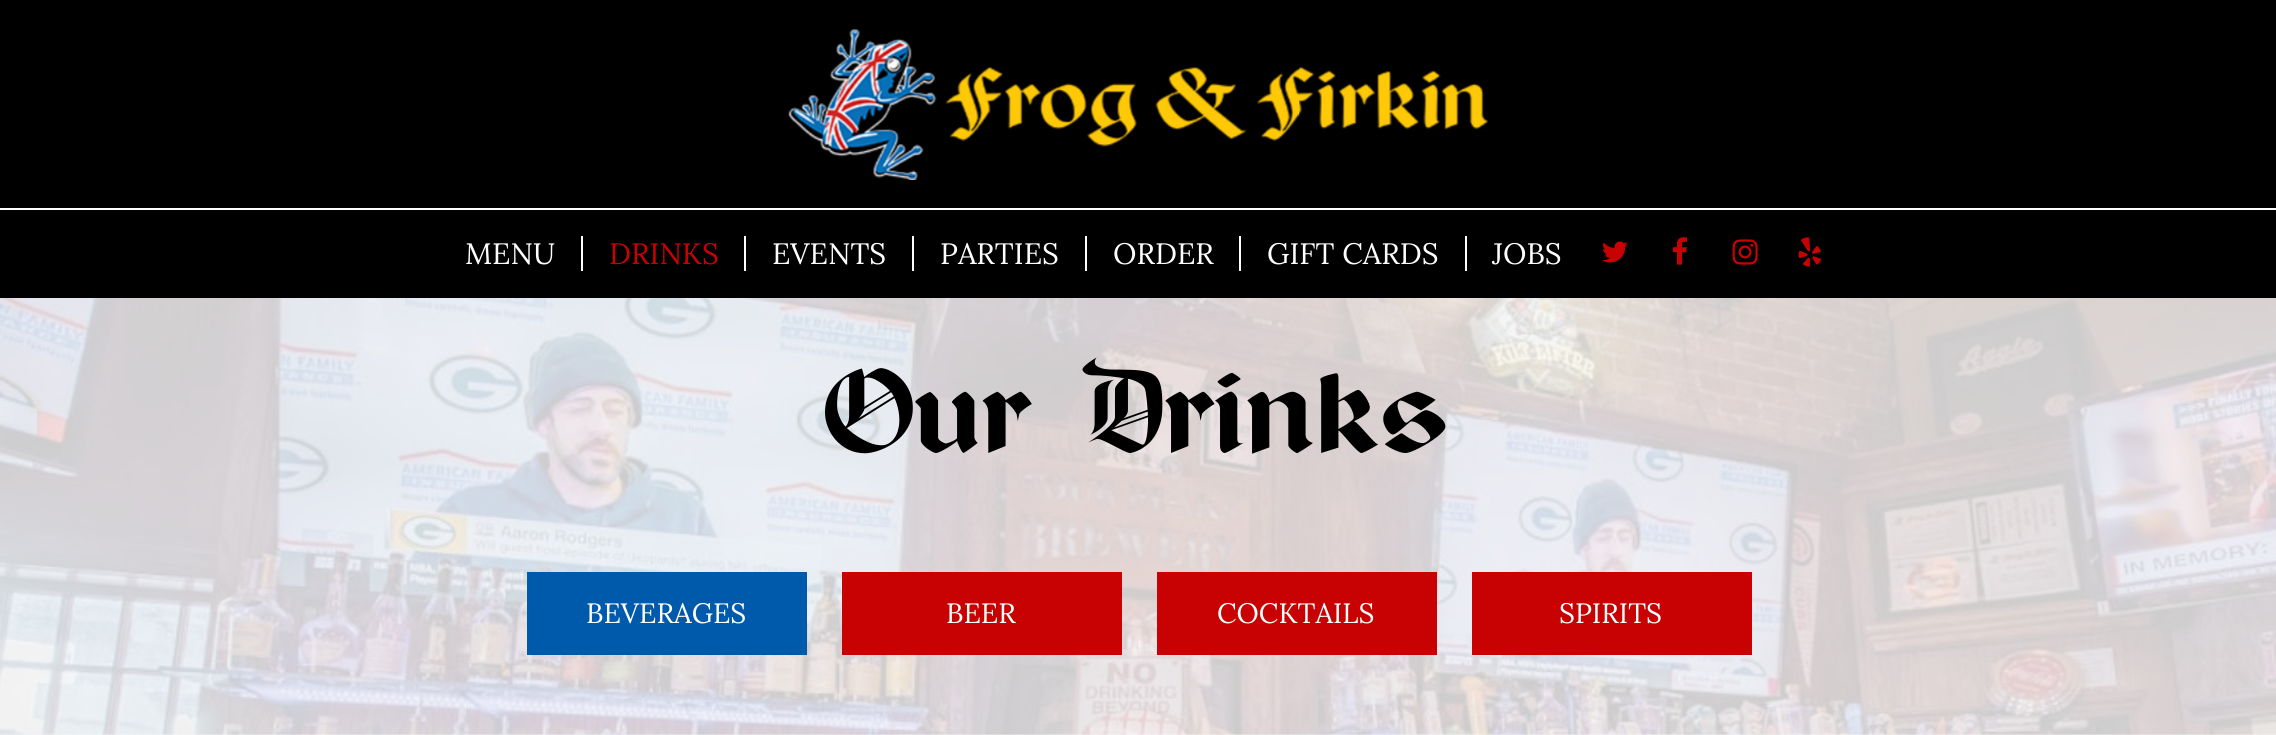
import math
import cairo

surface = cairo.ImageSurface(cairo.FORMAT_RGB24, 2276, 735)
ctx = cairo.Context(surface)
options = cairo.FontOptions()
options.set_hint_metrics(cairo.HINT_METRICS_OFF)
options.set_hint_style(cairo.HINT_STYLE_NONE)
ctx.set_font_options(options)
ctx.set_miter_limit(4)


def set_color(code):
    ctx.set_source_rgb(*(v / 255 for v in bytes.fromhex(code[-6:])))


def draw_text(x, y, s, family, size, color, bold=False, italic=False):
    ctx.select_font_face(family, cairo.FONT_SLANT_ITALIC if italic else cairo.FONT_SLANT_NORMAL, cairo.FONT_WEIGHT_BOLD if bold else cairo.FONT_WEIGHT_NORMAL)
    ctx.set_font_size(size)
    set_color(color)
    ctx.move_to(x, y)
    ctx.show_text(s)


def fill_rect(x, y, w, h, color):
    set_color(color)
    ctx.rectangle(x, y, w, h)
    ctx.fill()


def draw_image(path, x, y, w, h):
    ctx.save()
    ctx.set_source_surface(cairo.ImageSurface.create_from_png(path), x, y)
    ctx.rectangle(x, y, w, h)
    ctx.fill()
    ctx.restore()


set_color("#ffffff")
ctx.paint()
fill_rect(0, 0, 2276, 208, "#000000")
draw_image("assets/img1.png", 788, 29, 700, 151)
fill_rect(0, 210, 2276, 88, "#000000")
fill_rect(581, 236, 2, 35, "#ffffff")
draw_text(465, 264, "MENU", "Lora", 29.5, "#ffffff")
fill_rect(744, 236, 2, 35, "#ffffff")
draw_text(609, 264, "DRINKS", "Lora", 29.5, "#c80203")
fill_rect(912, 236, 2, 35, "#ffffff")
draw_text(772, 264, "EVENTS", "Lora", 29.5, "#ffffff")
fill_rect(1085, 236, 2, 35, "#ffffff")
draw_text(940, 264, "PARTIES", "Lora", 29.5, "#ffffff")
fill_rect(1239, 236, 2, 35, "#ffffff")
draw_text(1113, 264, "ORDER", "Lora", 29.5, "#ffffff")
fill_rect(1465, 236, 2, 35, "#ffffff")
draw_text(1267, 264, "GIFT CARDS", "Lora", 29.5, "#ffffff")
draw_text(1492, 264, "JOBS", "Lora", 29.5, "#ffffff")
draw_image("assets/img2.png", 1602, 241, 26, 22)
draw_image("assets/img3.png", 1672, 237, 15, 28)
draw_image("assets/img4.png", 1732, 239, 26, 26)
draw_image("assets/img5.png", 1798, 237, 23, 30)
draw_image("assets/img6.png", 0, 298, 2276, 437)
draw_text(825, 453, "Our Drinks", "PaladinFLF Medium", 122.5, "#000000")
fill_rect(527, 572, 280, 83, "#005aab")
draw_text(586, 623, "BEVERAGES", "Lora", 28, "#ffffff")
fill_rect(842, 572, 280, 83, "#c80203")
draw_text(946, 623, "BEER", "Lora", 28, "#ffffff")
fill_rect(1157, 572, 280, 83, "#c80203")
draw_text(1217, 623, "COCKTAILS", "Lora", 28, "#ffffff")
fill_rect(1472, 572, 280, 83, "#c80203")
draw_text(1559, 623, "SPIRITS", "Lora", 28, "#ffffff")
surface.write_to_png("output.png")
